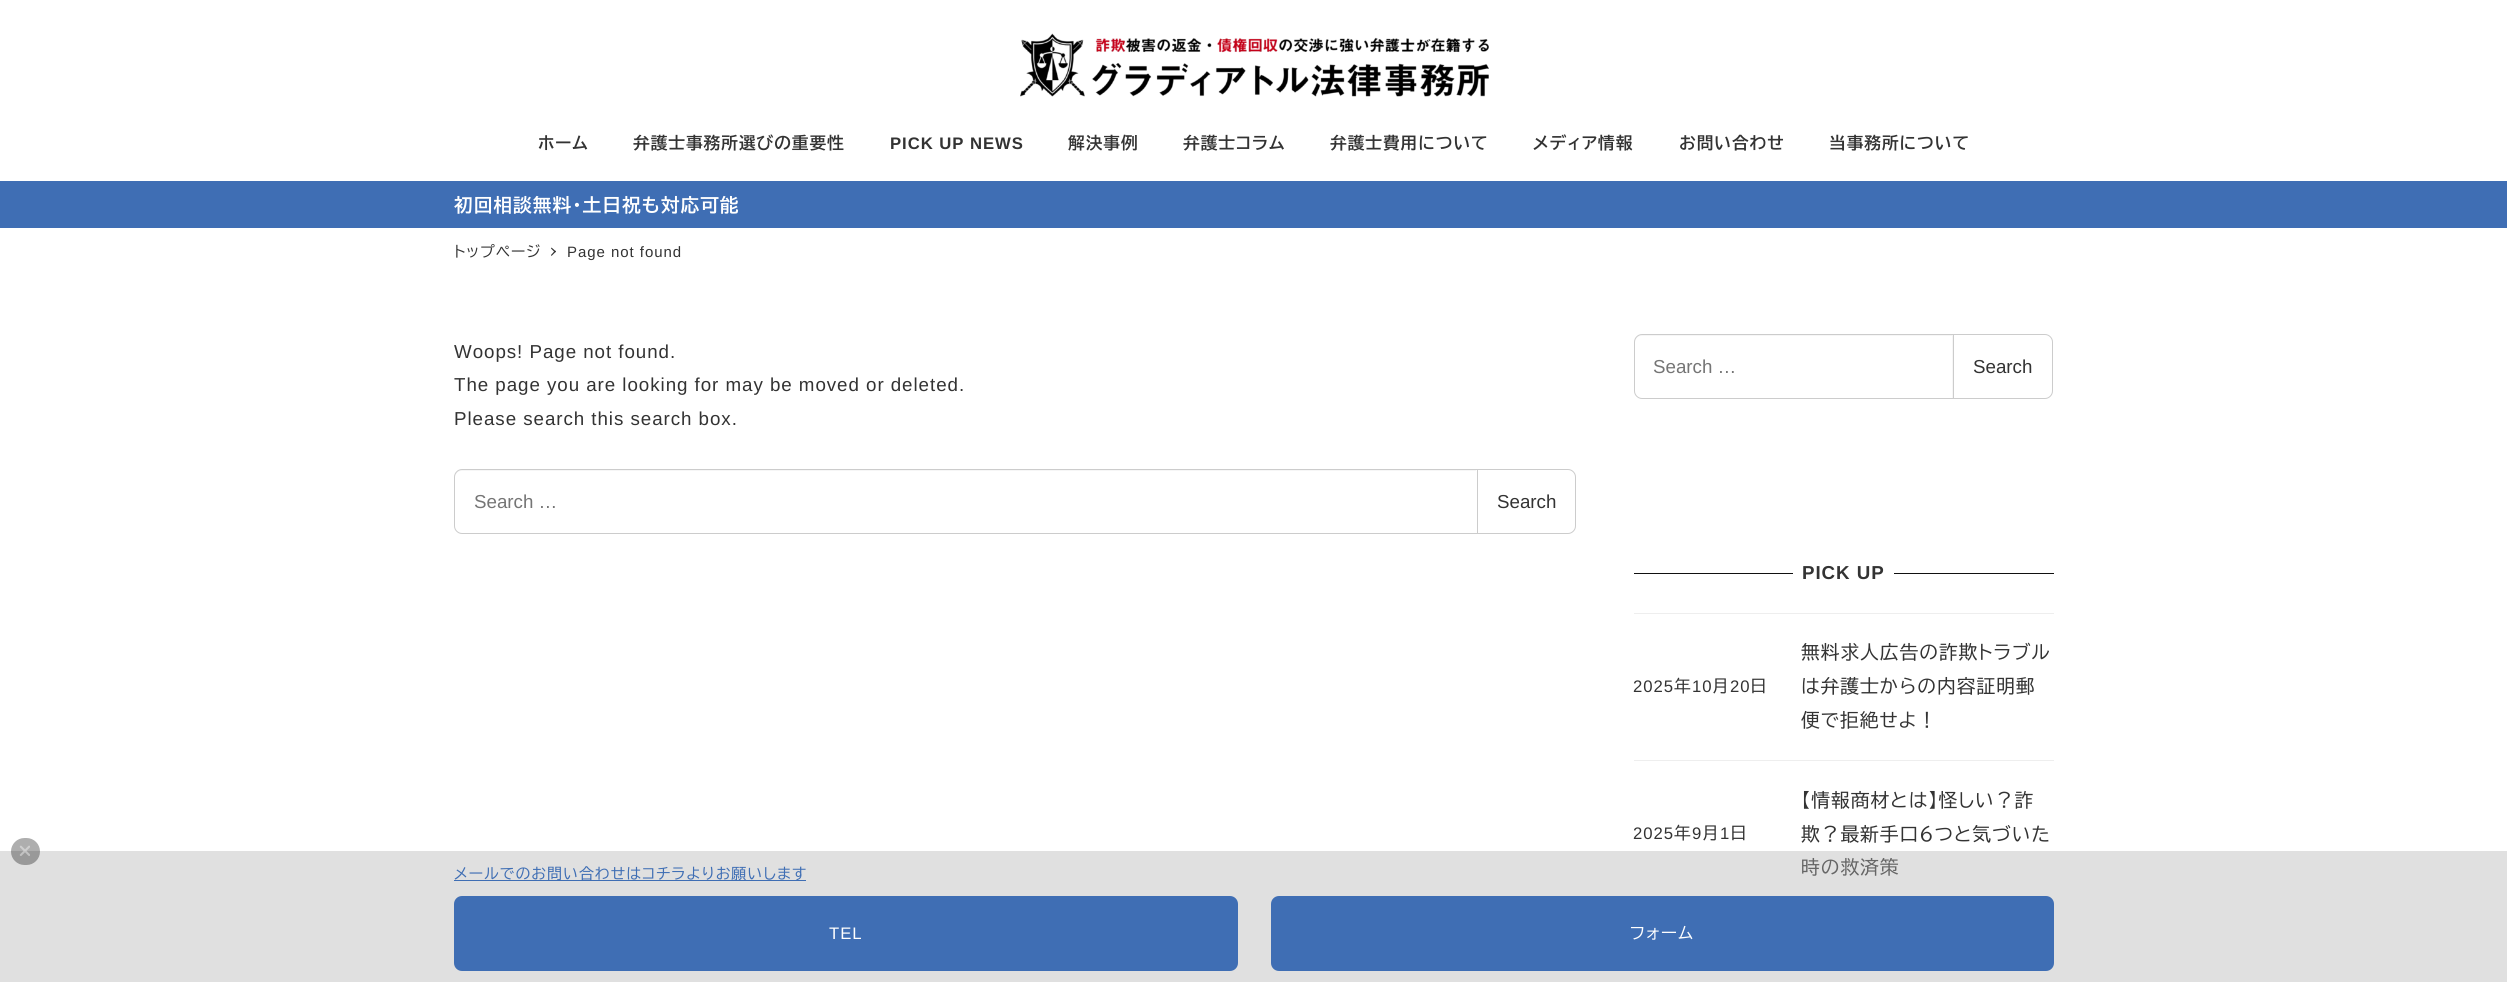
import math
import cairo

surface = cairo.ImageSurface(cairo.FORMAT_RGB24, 2507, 982)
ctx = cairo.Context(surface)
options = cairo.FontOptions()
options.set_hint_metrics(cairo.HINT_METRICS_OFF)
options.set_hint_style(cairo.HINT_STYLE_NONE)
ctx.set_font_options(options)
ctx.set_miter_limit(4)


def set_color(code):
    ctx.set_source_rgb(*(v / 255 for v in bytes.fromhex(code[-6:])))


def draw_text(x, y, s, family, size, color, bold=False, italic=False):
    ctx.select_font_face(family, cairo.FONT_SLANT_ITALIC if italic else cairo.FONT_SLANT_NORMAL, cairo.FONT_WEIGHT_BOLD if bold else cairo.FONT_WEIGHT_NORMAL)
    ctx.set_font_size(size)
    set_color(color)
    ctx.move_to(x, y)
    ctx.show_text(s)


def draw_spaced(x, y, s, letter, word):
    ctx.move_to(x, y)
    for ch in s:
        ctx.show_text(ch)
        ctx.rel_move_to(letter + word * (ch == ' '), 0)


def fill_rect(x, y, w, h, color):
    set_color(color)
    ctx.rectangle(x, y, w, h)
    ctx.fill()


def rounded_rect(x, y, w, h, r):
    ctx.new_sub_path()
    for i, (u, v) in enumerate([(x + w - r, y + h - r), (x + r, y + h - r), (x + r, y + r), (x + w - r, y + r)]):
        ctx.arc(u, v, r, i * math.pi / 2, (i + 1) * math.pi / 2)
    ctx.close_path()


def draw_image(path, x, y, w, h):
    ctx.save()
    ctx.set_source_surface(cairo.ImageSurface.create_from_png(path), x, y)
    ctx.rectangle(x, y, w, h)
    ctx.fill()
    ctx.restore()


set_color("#ffffff")
ctx.paint()
fill_rect(0, 851, 2507, 131, "#e0e0e0")
draw_image("assets/img1.png", 1020, 33, 469, 64)
ctx.select_font_face("BIZ UDPGothic", cairo.FONT_SLANT_NORMAL, cairo.FONT_WEIGHT_BOLD)
ctx.set_font_size(16.7)
set_color("#333333")
draw_spaced(538, 149, "ホーム", 0.95, 0)
draw_spaced(633, 149, "弁護士事務所選びの重要性", 0.95, 0)
ctx.select_font_face("Liberation Sans", cairo.FONT_SLANT_NORMAL, cairo.FONT_WEIGHT_BOLD)
draw_spaced(890, 149, "PICK UP NEWS", 0.95, 0)
ctx.select_font_face("BIZ UDPGothic", cairo.FONT_SLANT_NORMAL, cairo.FONT_WEIGHT_BOLD)
draw_spaced(1068, 149, "解決事例", 0.95, 0)
draw_spaced(1183, 149, "弁護士コラム", 0.95, 0)
draw_spaced(1330, 149, "弁護士費用について", 0.95, 0)
draw_spaced(1533, 149, "メディア情報", 0.95, 0)
draw_spaced(1679, 149, "お問い合わせ", 0.95, 0)
draw_spaced(1829, 149, "当事務所について", 0.95, 0)
fill_rect(0, 181, 2507, 47, "#3f6eb4")
ctx.set_font_size(18.75)
set_color("#ffffff")
draw_spaced(454, 212, "初回相談無料・土日祝も対応可能", 0.95, 0)
ctx.select_font_face("BIZ UDPGothic")
ctx.set_font_size(15)
set_color("#333333")
draw_spaced(454, 257, "トップページ", 0.95, 0)
ctx.new_path()
ctx.move_to(551.5, 247.5)
ctx.line_to(556, 251.5)
ctx.line_to(555, 252.5)
ctx.line_to(551, 248.5)
ctx.close_path()
ctx.fill()
ctx.new_path()
ctx.move_to(555, 250.5)
ctx.line_to(556, 251.5)
ctx.line_to(551.5, 256)
ctx.line_to(551, 255)
ctx.close_path()
ctx.fill()
ctx.select_font_face("Liberation Sans")
draw_spaced(567, 257, "Page not found", 0.95, 0)
ctx.set_font_size(18.75)
draw_spaced(454, 358, "Woops! Page not found.", 0.95, 0)
draw_spaced(454, 391, "The page you are looking for may be moved or deleted.", 0.95, 0)
draw_spaced(454, 425, "Please search this search box.", 0.95, 0)
ctx.new_path()
ctx.move_to(1476.5, 469.5)
ctx.line_to(1568, 469.5)
ctx.curve_to(1572, 469.5, 1575.5, 473, 1575.5, 477)
ctx.line_to(1575.5, 526)
ctx.curve_to(1575.5, 530, 1572, 533.5, 1568, 533.5)
ctx.line_to(1476.5, 533.5)
ctx.close_path()
set_color("#cccccc")
ctx.set_line_width(1)
ctx.stroke()
set_color("#ffffff")
ctx.new_path()
ctx.move_to(462, 469)
ctx.line_to(1478, 469)
ctx.line_to(1478, 534)
ctx.line_to(462, 534)
ctx.curve_to(457.5, 534, 454, 530.5, 454, 526)
ctx.line_to(454, 477)
ctx.curve_to(454, 472.5, 457.5, 469, 462, 469)
ctx.close_path()
ctx.fill()
set_color("#f6f6f6")
ctx.new_path()
ctx.move_to(461, 471)
ctx.line_to(1476, 471)
ctx.line_to(1476, 470)
ctx.line_to(461, 470)
ctx.curve_to(456, 470, 455, 474, 455, 478)
ctx.curve_to(455, 474, 458, 471, 461, 471)
ctx.close_path()
ctx.fill()
ctx.new_path()
ctx.move_to(462, 469.5)
ctx.line_to(1477.5, 469.5)
ctx.line_to(1477.5, 533.5)
ctx.line_to(462, 533.5)
ctx.curve_to(458, 533.5, 454.5, 530, 454.5, 526)
ctx.line_to(454.5, 477)
ctx.curve_to(454.5, 473, 458, 469.5, 462, 469.5)
ctx.close_path()
set_color("#cccccc")
ctx.stroke()
draw_text(474, 508, "Search …", "Liberation Sans", 18.75, "#757575")
draw_text(1497, 508, "Search", "Liberation Sans", 18.75, "#333333")
ctx.new_path()
ctx.move_to(1953.5, 334.5)
ctx.line_to(2045, 334.5)
ctx.curve_to(2049, 334.5, 2052.5, 338, 2052.5, 342)
ctx.line_to(2052.5, 391)
ctx.curve_to(2052.5, 395, 2049, 398.5, 2045, 398.5)
ctx.line_to(1953.5, 398.5)
ctx.close_path()
set_color("#cccccc")
ctx.stroke()
set_color("#ffffff")
ctx.new_path()
ctx.move_to(1642, 334)
ctx.line_to(1954, 334)
ctx.line_to(1954, 399)
ctx.line_to(1642, 399)
ctx.curve_to(1637.5, 399, 1634, 395.5, 1634, 391)
ctx.line_to(1634, 342)
ctx.curve_to(1634, 337.5, 1637.5, 334, 1642, 334)
ctx.close_path()
ctx.fill()
set_color("#f6f6f6")
ctx.new_path()
ctx.move_to(1641, 336)
ctx.line_to(1952, 336)
ctx.line_to(1952, 398)
ctx.line_to(1953, 398)
ctx.line_to(1953, 335)
ctx.line_to(1641, 335)
ctx.curve_to(1638, 335, 1635, 338, 1635, 341)
ctx.line_to(1635, 342)
ctx.curve_to(1635, 339, 1638, 336, 1641, 336)
ctx.close_path()
ctx.fill()
ctx.new_path()
ctx.move_to(1642, 334.5)
ctx.line_to(1953.5, 334.5)
ctx.line_to(1953.5, 398.5)
ctx.line_to(1642, 398.5)
ctx.curve_to(1638, 398.5, 1634.5, 395, 1634.5, 391)
ctx.line_to(1634.5, 342)
ctx.curve_to(1634.5, 338, 1638, 334.5, 1642, 334.5)
ctx.close_path()
set_color("#cccccc")
ctx.stroke()
draw_text(1653, 373, "Search …", "Liberation Sans", 18.75, "#757575")
draw_text(1973, 373, "Search", "Liberation Sans", 18.75, "#333333")
fill_rect(1634, 573, 159, 1, "#111111")
ctx.select_font_face("Liberation Sans", cairo.FONT_SLANT_NORMAL, cairo.FONT_WEIGHT_BOLD)
set_color("#333333")
draw_spaced(1802, 579, "PICK UP", 0.95, 0)
fill_rect(1894, 573, 160, 1, "#111111")
fill_rect(1634, 613, 420, 1, "#eeeeee")
fill_rect(1634, 760, 420, 1, "#eeeeee")
ctx.select_font_face("Liberation Sans")
ctx.set_font_size(16.7)
set_color("#333333")
draw_spaced(1633, 692, "2025", 0.95, 0)
ctx.select_font_face("BIZ UDPGothic")
draw_spaced(1674, 692, "年", 0.95, 0)
ctx.select_font_face("Liberation Sans")
draw_spaced(1692, 692, "10", 0.95, 0)
ctx.select_font_face("BIZ UDPGothic")
draw_spaced(1712, 692, "月", 0.95, 0)
ctx.select_font_face("Liberation Sans")
draw_spaced(1730, 692, "20", 0.95, 0)
ctx.select_font_face("BIZ UDPGothic")
draw_spaced(1750, 692, "日", 0.95, 0)
ctx.set_font_size(18.75)
draw_spaced(1801, 659, "無料求人広告の詐欺トラブル", 0.95, 0)
draw_spaced(1801, 693, "は弁護士からの内容証明郵", 0.95, 0)
draw_spaced(1801, 727, "便で拒絶せよ！", 0.95, 0)
ctx.select_font_face("Liberation Sans")
ctx.set_font_size(16.7)
draw_spaced(1633, 839, "2025", 0.95, 0)
ctx.select_font_face("BIZ UDPGothic")
draw_spaced(1674, 839, "年", 0.95, 0)
ctx.select_font_face("Liberation Sans")
draw_spaced(1692, 839, "9", 0.95, 0)
ctx.select_font_face("BIZ UDPGothic")
draw_spaced(1702, 839, "月", 0.95, 0)
ctx.select_font_face("Liberation Sans")
draw_spaced(1720, 839, "1", 0.95, 0)
ctx.select_font_face("BIZ UDPGothic")
draw_spaced(1730, 839, "日", 0.95, 0)
ctx.set_font_size(18.75)
draw_spaced(1801, 807, "【情報商材とは】怪しい？詐", 0.95, 0)
draw_spaced(1801, 841, "欺？最新手口6つと気づいた", 0.95, 0)
set_color("#666666")
draw_spaced(1801, 874, "時の救済策", 0.95, 0)
ctx.set_source_rgba(0, 0, 0, 0.32)
rounded_rect(11, 838, 29, 27, 13.5)
ctx.fill()
draw_image("assets/img2.png", 19, 845, 11, 11)
fill_rect(454, 880, 352, 1, "#3f6eb4")
ctx.set_font_size(15)
draw_spaced(454, 879, "メールでのお問い合わせはコチラよりお願いします", 0.95, 0)
rounded_rect(454, 896, 784, 75, 8)
ctx.fill()
ctx.select_font_face("Liberation Sans")
ctx.set_font_size(16.7)
set_color("#ffffff")
draw_spaced(829, 939, "TEL", 0.95, 0)
set_color("#3f6eb4")
rounded_rect(1271, 896, 783, 75, 8)
ctx.fill()
ctx.select_font_face("BIZ UDPGothic")
set_color("#ffffff")
draw_spaced(1630, 939, "フォーム", 0.95, 0)
surface.write_to_png("output.png")
